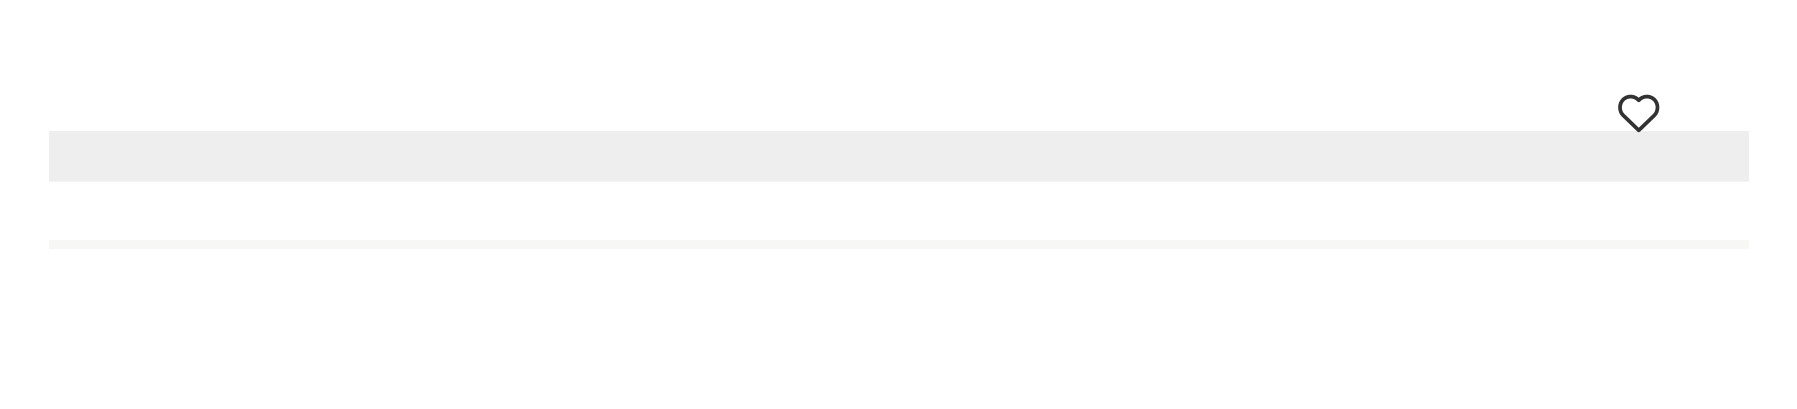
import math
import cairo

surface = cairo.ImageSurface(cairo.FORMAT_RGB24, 1797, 409)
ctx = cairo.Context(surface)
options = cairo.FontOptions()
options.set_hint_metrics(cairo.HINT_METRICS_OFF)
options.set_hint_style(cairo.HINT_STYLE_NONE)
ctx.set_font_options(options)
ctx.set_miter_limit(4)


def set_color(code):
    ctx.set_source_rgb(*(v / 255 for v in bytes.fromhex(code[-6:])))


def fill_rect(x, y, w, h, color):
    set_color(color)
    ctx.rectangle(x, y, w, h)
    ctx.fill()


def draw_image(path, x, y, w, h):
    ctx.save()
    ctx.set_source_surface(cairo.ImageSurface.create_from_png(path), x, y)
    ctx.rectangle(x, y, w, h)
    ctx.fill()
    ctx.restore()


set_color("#ffffff")
ctx.paint()
fill_rect(49, 131, 1700, 50, "#eeeeee")
draw_image("assets/img1.png", 1618, 94, 42, 39)
fill_rect(49, 181, 1700, 1, "#f4f4f4")
fill_rect(49, 240, 1700, 9, "#f7f7f5")
surface.write_to_png("output.png")
